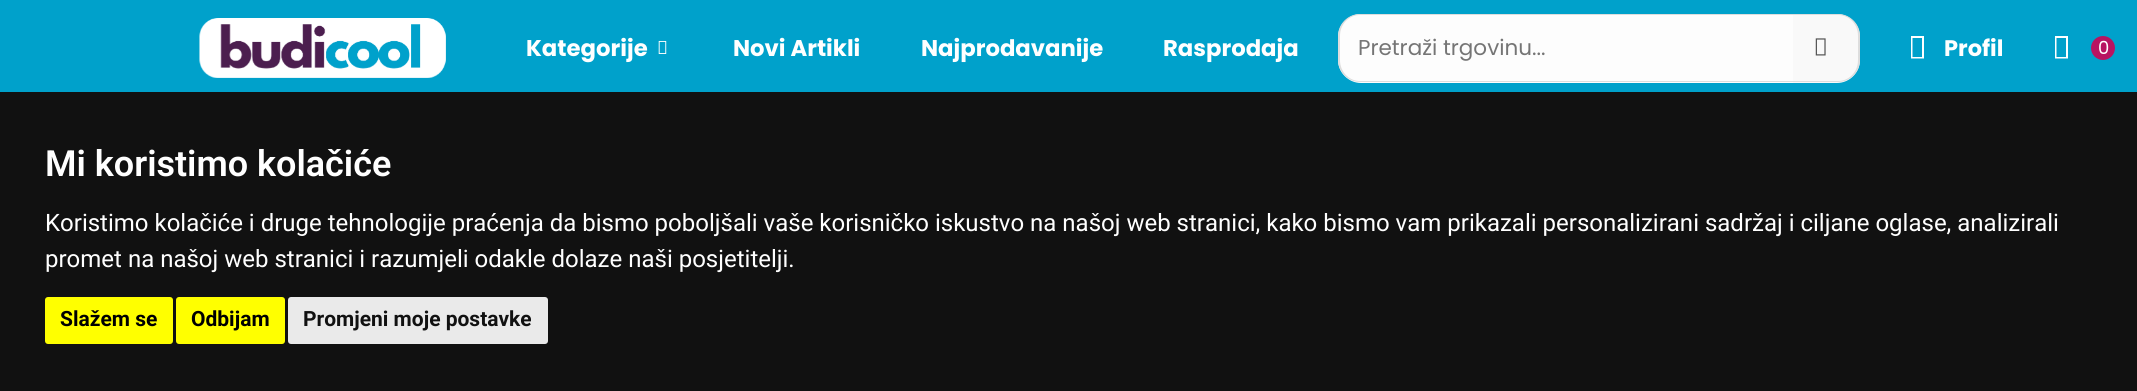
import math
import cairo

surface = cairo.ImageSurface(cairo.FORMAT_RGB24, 2137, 391)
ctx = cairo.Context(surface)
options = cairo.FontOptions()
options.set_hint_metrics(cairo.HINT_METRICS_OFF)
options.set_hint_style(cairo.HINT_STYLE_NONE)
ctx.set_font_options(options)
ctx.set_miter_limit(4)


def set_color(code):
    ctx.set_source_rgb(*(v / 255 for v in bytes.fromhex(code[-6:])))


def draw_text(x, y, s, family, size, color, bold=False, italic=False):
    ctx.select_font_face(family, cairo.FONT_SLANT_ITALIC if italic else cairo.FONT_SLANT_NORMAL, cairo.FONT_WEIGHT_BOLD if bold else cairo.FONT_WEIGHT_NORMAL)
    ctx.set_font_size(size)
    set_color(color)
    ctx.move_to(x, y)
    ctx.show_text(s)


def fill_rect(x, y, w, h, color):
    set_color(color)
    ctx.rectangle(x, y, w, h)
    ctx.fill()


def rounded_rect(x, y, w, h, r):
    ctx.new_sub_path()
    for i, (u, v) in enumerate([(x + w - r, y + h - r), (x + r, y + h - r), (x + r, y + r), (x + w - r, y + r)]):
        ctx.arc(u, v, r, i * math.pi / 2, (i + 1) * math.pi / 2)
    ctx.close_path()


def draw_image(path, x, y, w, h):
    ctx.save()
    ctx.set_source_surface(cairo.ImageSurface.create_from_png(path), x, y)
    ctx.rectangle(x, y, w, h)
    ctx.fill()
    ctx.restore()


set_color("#00a1cb")
ctx.paint()
draw_image("assets/img1.png", 199, 18, 247, 60)
draw_text(526, 56, "Kategorije", "Poppins", 22.75, "#ffffff", bold=True)
draw_image("assets/img2.png", 658, 40, 9, 14)
draw_text(733, 56, "Novi Artikli", "Poppins", 22.75, "#ffffff", bold=True)
draw_text(921, 56, "Najprodavanije", "Poppins", 22.75, "#ffffff", bold=True)
draw_text(1163, 56, "Rasprodaja", "Poppins", 22.75, "#ffffff", bold=True)
set_color("#fdfdfd")
ctx.new_path()
ctx.move_to(1361, 14)
ctx.line_to(1793, 14)
ctx.line_to(1793, 83)
ctx.line_to(1361, 83)
ctx.curve_to(1348.5, 83, 1338, 72.5, 1338, 60)
ctx.line_to(1338, 37)
ctx.curve_to(1338, 24.5, 1348.5, 14, 1361, 14)
ctx.close_path()
ctx.fill()
set_color("#dddddd")
ctx.set_fill_rule(cairo.FILL_RULE_EVEN_ODD)
ctx.new_path()
ctx.move_to(1360, 14)
ctx.line_to(1792, 14)
ctx.line_to(1792, 82)
ctx.line_to(1360, 82)
ctx.curve_to(1348, 82, 1338, 72, 1338, 60)
ctx.line_to(1338, 36)
ctx.curve_to(1338, 24, 1348, 14, 1360, 14)
ctx.close_path()
ctx.move_to(1360, 15)
ctx.line_to(1792, 15)
ctx.line_to(1792, 81)
ctx.line_to(1360, 81)
ctx.curve_to(1349, 81, 1340, 72, 1340, 60)
ctx.line_to(1340, 36)
ctx.curve_to(1340, 24, 1349, 15, 1360, 15)
ctx.close_path()
ctx.fill()
draw_text(1358, 55, "Pretraži trgovinu...", "Poppins", 21.5, "#757575")
set_color("#f9f9f9")
ctx.new_path()
ctx.move_to(1793, 14)
ctx.line_to(1837, 14)
ctx.curve_to(1849.5, 14, 1860, 24.5, 1860, 37)
ctx.line_to(1860, 60)
ctx.curve_to(1860, 72.5, 1849.5, 83, 1837, 83)
ctx.line_to(1793, 83)
ctx.close_path()
ctx.fill()
set_color("#dddddd")
ctx.new_path()
ctx.move_to(1792, 14)
ctx.line_to(1838, 14)
ctx.curve_to(1850, 14, 1860, 24, 1860, 36)
ctx.line_to(1860, 60)
ctx.curve_to(1860, 72, 1850, 82, 1838, 82)
ctx.line_to(1792, 82)
ctx.close_path()
ctx.move_to(1792, 15)
ctx.line_to(1838, 15)
ctx.curve_to(1849, 15, 1858, 24, 1858, 36)
ctx.line_to(1858, 60)
ctx.curve_to(1858, 72, 1849, 81, 1838, 81)
ctx.line_to(1792, 81)
ctx.close_path()
ctx.fill()
draw_image("assets/img3.png", 1815, 38, 11, 18)
set_color("#ffffff")
ctx.set_fill_rule(cairo.FILL_RULE_WINDING)
ctx.new_path()
ctx.move_to(1911, 58.5)
ctx.line_to(1911, 36)
ctx.line_to(1924, 36)
ctx.line_to(1924, 58.5)
ctx.close_path()
ctx.move_to(1912.5, 57)
ctx.line_to(1922, 57)
ctx.line_to(1922, 38)
ctx.line_to(1912.5, 38)
ctx.close_path()
ctx.fill()
draw_text(1944, 56, "Profil", "Poppins", 22.5, "#ffffff", bold=True)
ctx.new_path()
ctx.move_to(2055, 58.5)
ctx.line_to(2055, 36)
ctx.line_to(2068, 36)
ctx.line_to(2068, 58.5)
ctx.close_path()
ctx.move_to(2056.5, 57)
ctx.line_to(2066, 57)
ctx.line_to(2066, 38)
ctx.line_to(2056.5, 38)
ctx.close_path()
ctx.fill()
set_color("#b81361")
ctx.arc(2103, 48, 12, 0, 2 * math.pi)
ctx.fill()
draw_text(2098, 54, "0", "Poppins", 18, "#ffffff")
fill_rect(0, 92, 2137, 299, "#111111")
draw_text(45, 176, "Mi koristimo kolačiće", "Roboto SemiBold", 36, "#ffffff")
draw_text(45, 231, "Koristimo kolačiće i druge tehnologije praćenja da bismo poboljšali vaše korisničko iskustvo na našoj web stranici, kako bismo vam prikazali personalizirani sadržaj i ciljane oglase, analizirali", "Roboto", 24, "#ffffff")
draw_text(45, 267, "promet na našoj web stranici i razumjeli odakle dolaze naši posjetitelji.", "Roboto", 24, "#ffffff")
set_color("#ffff00")
rounded_rect(45, 297, 128, 47, 3)
ctx.fill()
draw_text(60, 326, "Slažem se", "Roboto", 21, "#000000", bold=True)
set_color("#ffff00")
rounded_rect(176, 297, 109, 47, 3)
ctx.fill()
draw_text(191, 326, "Odbijam", "Roboto", 21, "#000000", bold=True)
set_color("#eaeaea")
rounded_rect(288, 297, 260, 47, 3)
ctx.fill()
draw_text(303, 326, "Promjeni moje postavke", "Roboto", 21, "#111111", bold=True)
surface.write_to_png("output.png")
